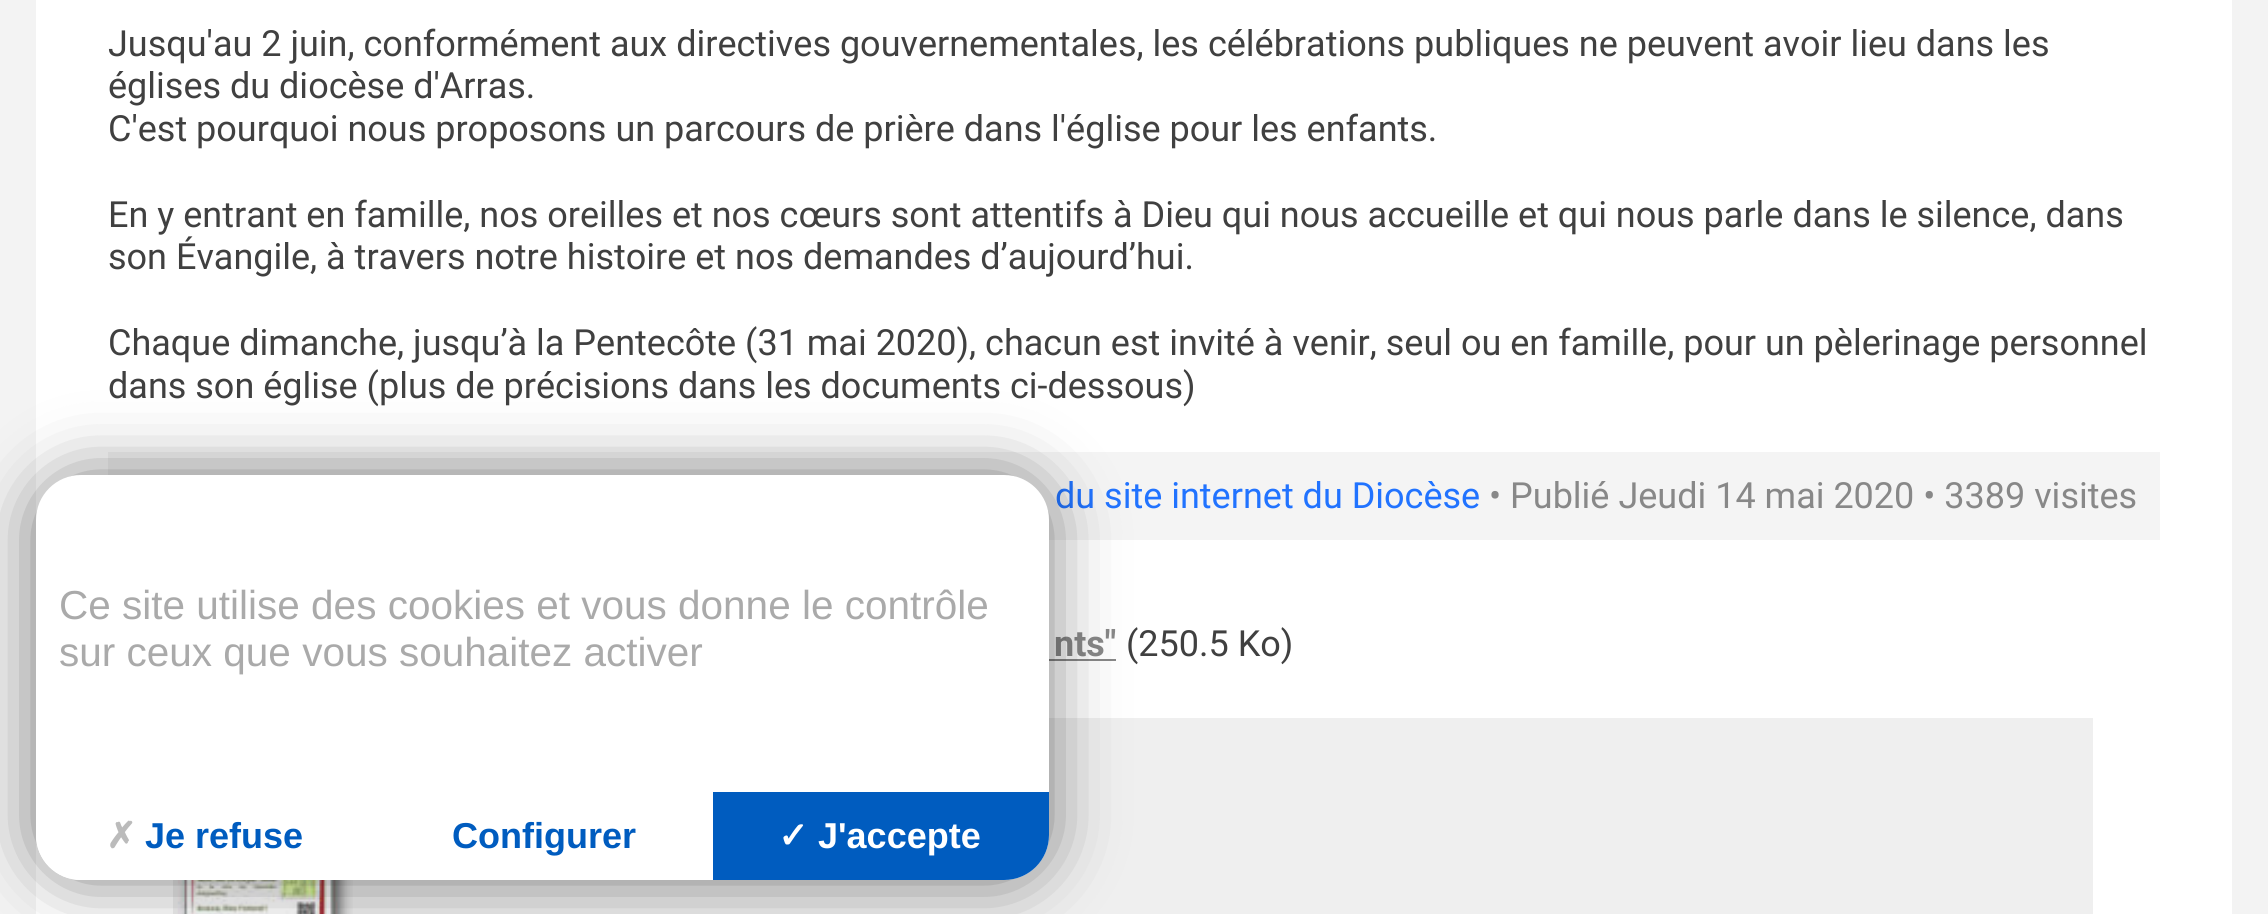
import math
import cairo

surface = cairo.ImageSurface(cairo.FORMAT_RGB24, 2268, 914)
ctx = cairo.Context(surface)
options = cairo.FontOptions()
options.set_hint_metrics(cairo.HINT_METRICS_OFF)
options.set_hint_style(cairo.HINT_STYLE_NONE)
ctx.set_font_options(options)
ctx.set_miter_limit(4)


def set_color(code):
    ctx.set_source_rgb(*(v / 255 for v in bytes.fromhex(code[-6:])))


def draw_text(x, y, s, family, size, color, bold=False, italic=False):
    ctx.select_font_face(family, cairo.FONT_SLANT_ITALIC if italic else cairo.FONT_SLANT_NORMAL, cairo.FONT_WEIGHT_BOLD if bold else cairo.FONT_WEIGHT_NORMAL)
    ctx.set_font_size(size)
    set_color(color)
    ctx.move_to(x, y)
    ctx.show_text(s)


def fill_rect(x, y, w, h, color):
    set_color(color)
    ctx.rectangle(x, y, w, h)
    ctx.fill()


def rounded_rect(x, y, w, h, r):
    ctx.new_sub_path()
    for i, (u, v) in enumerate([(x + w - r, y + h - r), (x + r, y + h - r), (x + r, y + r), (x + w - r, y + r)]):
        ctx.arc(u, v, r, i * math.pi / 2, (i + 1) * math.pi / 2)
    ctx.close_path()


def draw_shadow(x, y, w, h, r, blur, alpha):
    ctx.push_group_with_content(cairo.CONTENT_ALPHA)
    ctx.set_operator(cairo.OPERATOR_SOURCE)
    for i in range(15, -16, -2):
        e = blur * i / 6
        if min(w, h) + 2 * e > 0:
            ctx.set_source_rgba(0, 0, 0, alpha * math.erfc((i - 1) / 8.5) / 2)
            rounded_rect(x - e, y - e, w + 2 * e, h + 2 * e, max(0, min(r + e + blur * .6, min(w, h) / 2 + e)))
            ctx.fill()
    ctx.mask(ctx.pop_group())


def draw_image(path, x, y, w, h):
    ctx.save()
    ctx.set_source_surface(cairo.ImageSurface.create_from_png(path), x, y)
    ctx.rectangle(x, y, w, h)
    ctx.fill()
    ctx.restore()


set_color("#f3f3f3")
ctx.paint()
fill_rect(36, 0, 2196, 914, "#ffffff")
draw_text(108, 56, "Jusqu'au 2 juin, conformément aux directives gouvernementales, les célébrations publiques ne peuvent avoir lieu dans les", "Roboto", 36, "#404040")
draw_text(108, 98, "églises du diocèse d'Arras.", "Roboto", 36, "#404040")
draw_text(108, 141, "C'est pourquoi nous proposons un parcours de prière dans l'église pour les enfants.", "Roboto", 36, "#404040")
draw_text(108, 227, "En y entrant en famille, nos oreilles et nos cœurs sont attentifs à Dieu qui nous accueille et qui nous parle dans le silence, dans", "Roboto", 36, "#404040")
draw_text(108, 269, "son Évangile, à travers notre histoire et nos demandes d’aujourd’hui.", "Roboto", 36, "#404040")
draw_text(108, 355, "Chaque dimanche, jusqu’à la Pentecôte (31 mai 2020), chacun est invité à venir, seul ou en famille, pour un pèlerinage personnel", "Roboto", 36, "#404040")
draw_text(108, 398, "dans son église (plus de précisions dans les documents ci-dessous)", "Roboto", 36, "#404040")
fill_rect(108, 452, 2052, 88, "#f4f4f4")
draw_text(1055, 508, "du site internet du Diocèse", "Roboto", 36, "#2173ff")
draw_text(1489, 508, "• Publié Jeudi 14 mai 2020 • 3389 visites", "Roboto", 36, "#888888")
draw_text(1054, 656, "nts\"", "Roboto", 36, "#888888", bold=True)
fill_rect(1049, 659, 67, 2, "#888888")
draw_text(1126, 656, "(250.5 Ko)", "Roboto", 36, "#404040")
fill_rect(173, 718, 1920, 196, "#efefef")
draw_image("assets/img1.png", 177, 880, 176, 34)
set_color("#000000")
draw_shadow(36, 475, 1013, 405, 45, 34, 0.5)
set_color("#ffffff")
rounded_rect(36, 475, 1013, 405, 45)
ctx.fill()
draw_text(59, 619, "Ce site utilise des cookies et vous donne le contrôle", "Liberation Sans", 40.5, "#aaaaaa")
draw_text(59, 666, "sur ceux que vous souhaitez activer", "Liberation Sans", 40.5, "#aaaaaa")
set_color("#ffffff")
ctx.new_path()
ctx.move_to(36, 792)
ctx.line_to(374, 792)
ctx.line_to(374, 880)
ctx.line_to(81, 880)
ctx.curve_to(56, 880, 36, 860, 36, 835)
ctx.close_path()
ctx.fill()
draw_text(106, 848, "✗", "DejaVu Sans", 36, "#bbbbbb", bold=True)
draw_text(145, 848, "Je refuse", "Liberation Sans", 36, "#005cbf", bold=True)
ctx.new_path()
ctx.move_to(711, 792)
ctx.line_to(1049, 792)
ctx.line_to(1049, 835)
ctx.curve_to(1049, 860, 1029, 880, 1004, 880)
ctx.line_to(711, 880)
ctx.close_path()
ctx.fill()
fill_rect(711, 792, 2, 88, "#ffffff")
draw_text(452, 848, "Configurer", "Liberation Sans", 36, "#005cbf", bold=True)
draw_text(778, 848, "✓", "DejaVu Sans", 36, "#ffffff", bold=True)
draw_text(818, 848, "J'accepte", "Liberation Sans", 36, "#ffffff", bold=True)
surface.write_to_png("output.png")
